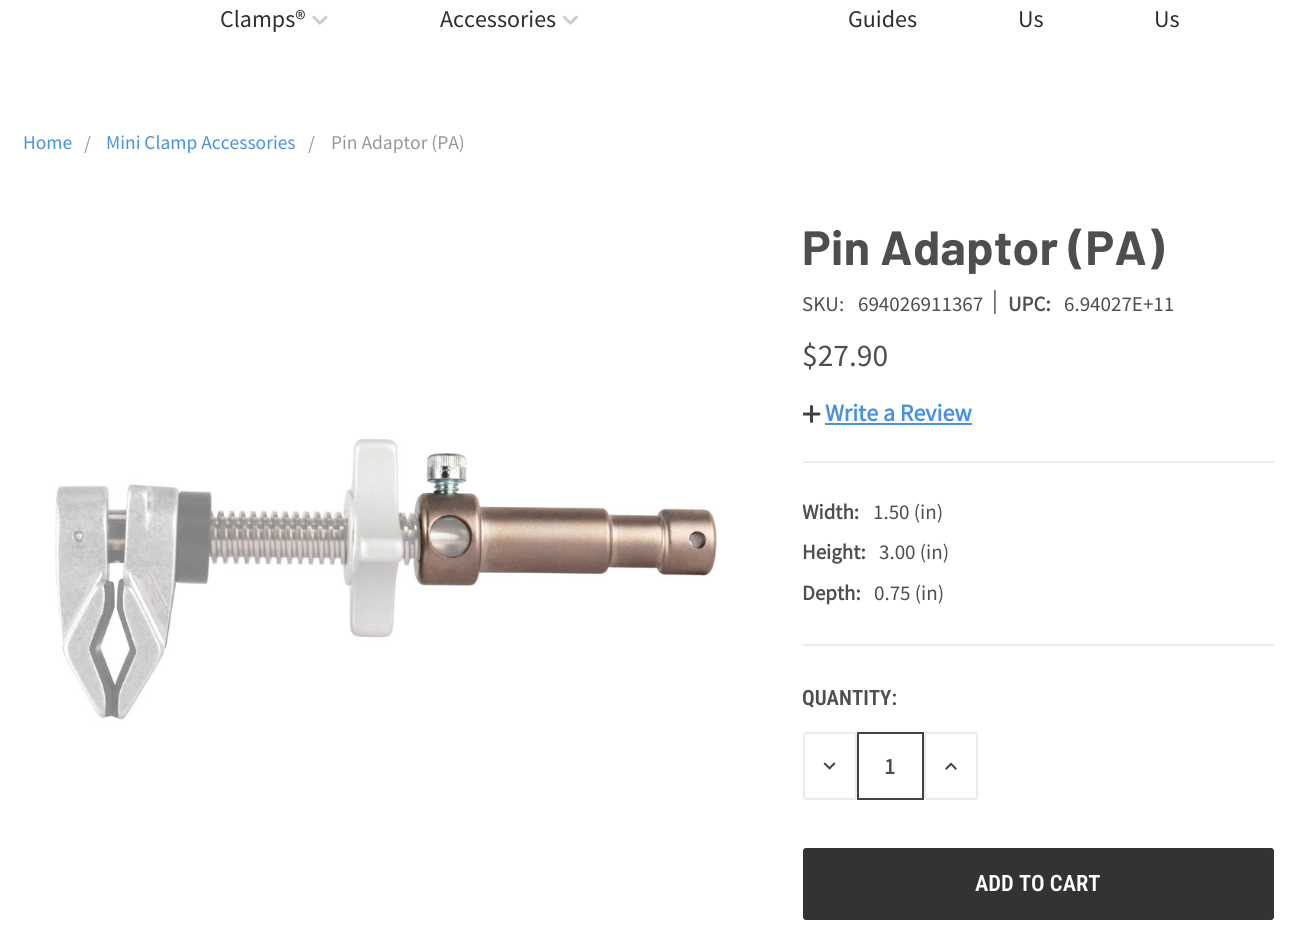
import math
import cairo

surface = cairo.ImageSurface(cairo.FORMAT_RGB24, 1295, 938)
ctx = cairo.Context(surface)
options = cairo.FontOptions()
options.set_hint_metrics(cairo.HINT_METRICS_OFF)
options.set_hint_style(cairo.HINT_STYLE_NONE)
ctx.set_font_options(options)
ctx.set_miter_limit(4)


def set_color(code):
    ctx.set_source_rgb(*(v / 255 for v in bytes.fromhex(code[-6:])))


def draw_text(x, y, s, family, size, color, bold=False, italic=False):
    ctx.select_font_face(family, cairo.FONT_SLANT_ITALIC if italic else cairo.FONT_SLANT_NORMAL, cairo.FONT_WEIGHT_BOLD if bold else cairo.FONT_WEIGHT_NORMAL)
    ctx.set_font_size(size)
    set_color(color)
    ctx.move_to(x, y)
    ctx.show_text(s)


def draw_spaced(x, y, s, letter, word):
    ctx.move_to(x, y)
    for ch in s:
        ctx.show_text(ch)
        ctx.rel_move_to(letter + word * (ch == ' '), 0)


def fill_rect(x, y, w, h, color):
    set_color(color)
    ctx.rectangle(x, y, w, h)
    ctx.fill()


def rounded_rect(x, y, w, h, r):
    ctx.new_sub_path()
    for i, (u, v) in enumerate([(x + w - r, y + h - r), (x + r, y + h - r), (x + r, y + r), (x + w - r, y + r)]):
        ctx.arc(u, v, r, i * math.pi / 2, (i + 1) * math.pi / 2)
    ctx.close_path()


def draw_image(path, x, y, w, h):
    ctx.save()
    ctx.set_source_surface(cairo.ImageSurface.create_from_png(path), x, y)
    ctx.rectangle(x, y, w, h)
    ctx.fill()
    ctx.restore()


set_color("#ffffff")
ctx.paint()
draw_text(220, 27, "Clamps®", "Source Sans Pro", 24, "#2f2f2b")
draw_image("assets/img1.png", 312, 15, 16, 10)
draw_text(440, 27, "Accessories", "Source Sans Pro", 24, "#2f2f2b")
draw_image("assets/img2.png", 562, 15, 16, 10)
draw_text(848, 27, "Guides", "Source Sans Pro", 24, "#2f2f2b")
draw_text(1018, 27, "Us", "Source Sans Pro", 24, "#2f2f2b")
draw_text(1154, 27, "Us", "Source Sans Pro", 24, "#2f2f2b")
draw_text(23, 149, "Home", "Source Sans Pro", 19.5, "#4a90e2")
draw_text(84, 150, "/", "Source Sans Pro", 19.5, "#989898")
draw_text(106, 149, "Mini Clamp Accessories", "Source Sans Pro", 19.5, "#4a90e2")
draw_text(308, 150, "/", "Source Sans Pro", 19.5, "#989898")
draw_text(331, 149, "Pin Adaptor (PA)", "Source Sans Pro", 19.5, "#989898")
draw_image("assets/img3.png", 55, 438, 663, 283)
ctx.select_font_face("Barlow", cairo.FONT_SLANT_NORMAL, cairo.FONT_WEIGHT_BOLD)
ctx.set_font_size(48)
set_color("#4e4e4e")
draw_spaced(802, 265, "Pin Adaptor (PA)", 0.4, 0)
draw_text(802, 311, "SKU:", "Source Sans Pro", 21, "#4e4e4e")
draw_text(858, 311, "694026911367", "Source Sans Pro", 21, "#4e4e4e")
draw_text(992, 308, "|", "Source Sans Pro", 24, "#4e4e4e")
draw_text(1008, 311, "UPC:", "Source Sans Pro", 21, "#4e4e4e", bold=True)
draw_text(1064, 311, "6.94027E+11", "Source Sans Pro", 21, "#4e4e4e")
draw_text(802, 366, "$27.90", "Source Sans Pro", 31.5, "#4e4e4e")
draw_image("assets/img4.png", 803, 405, 18, 18)
draw_text(825, 421, "Write a Review", "Source Sans Pro", 24, "#4a90e2", bold=True)
fill_rect(825, 423, 147, 2, "#4a90e2")
fill_rect(803, 461, 471, 2, "#ebebeb")
ctx.save()
ctx.rectangle(803, 462, 471, 71)
ctx.clip()
draw_text(802, 519, "Width:", "Source Sans Pro", 21, "#4e4e4e", bold=True)
ctx.restore()
draw_text(873, 519, "1.50 (in)", "Source Sans Pro", 21, "#4e4e4e")
draw_text(802, 559, "Height:", "Source Sans Pro", 21, "#4e4e4e", bold=True)
draw_text(879, 559, "3.00 (in)", "Source Sans Pro", 21, "#4e4e4e")
fill_rect(803, 644, 471, 2, "#ebebeb")
draw_text(802, 600, "Depth:", "Source Sans Pro", 21, "#4e4e4e", bold=True)
draw_text(874, 600, "0.75 (in)", "Source Sans Pro", 21, "#4e4e4e")
draw_text(802, 705, "QUANTITY:", "Roboto Condensed SemiBold", 21, "#4e4e4e")
rounded_rect(804, 733, 52, 66, 2)
set_color("#ebebeb")
ctx.stroke()
draw_image("assets/img5.png", 823, 762, 13, 8)
ctx.rectangle(858, 733, 65, 66)
set_color("#424242")
ctx.stroke()
draw_text(884, 774, "1", "Source Sans Pro", 22.5, "#4e4e4e", bold=True)
rounded_rect(925, 733, 52, 66, 2)
set_color("#ebebeb")
ctx.stroke()
draw_image("assets/img6.png", 945, 762, 12, 8)
set_color("#333333")
rounded_rect(803, 848, 471, 72, 3)
ctx.fill()
draw_text(975, 891, "ADD TO CART", "Roboto Condensed SemiBold", 22.5, "#ffffff")
surface.write_to_png("output.png")
